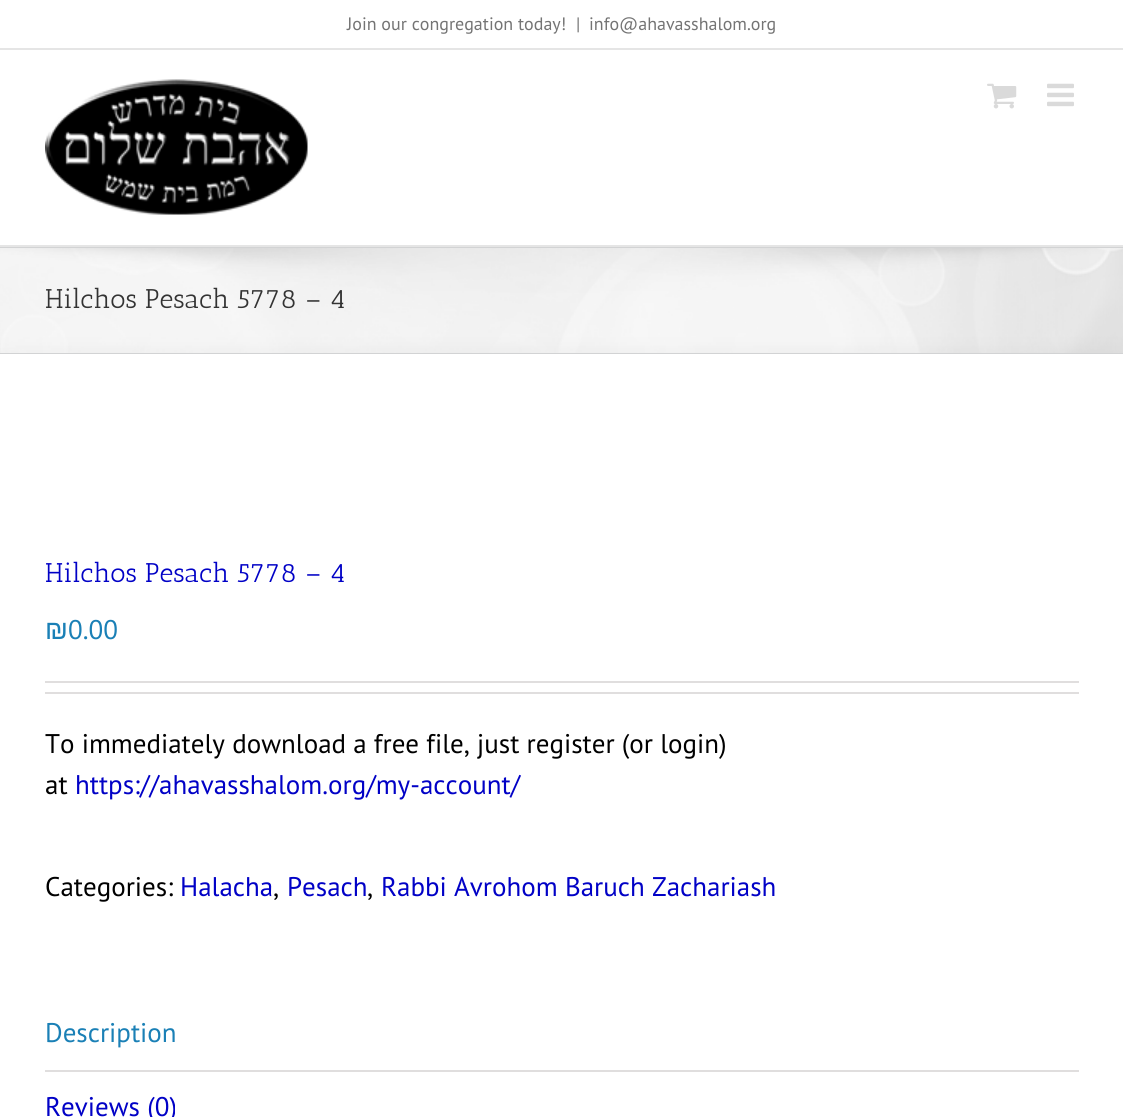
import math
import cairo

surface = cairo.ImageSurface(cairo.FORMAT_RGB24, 1123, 1117)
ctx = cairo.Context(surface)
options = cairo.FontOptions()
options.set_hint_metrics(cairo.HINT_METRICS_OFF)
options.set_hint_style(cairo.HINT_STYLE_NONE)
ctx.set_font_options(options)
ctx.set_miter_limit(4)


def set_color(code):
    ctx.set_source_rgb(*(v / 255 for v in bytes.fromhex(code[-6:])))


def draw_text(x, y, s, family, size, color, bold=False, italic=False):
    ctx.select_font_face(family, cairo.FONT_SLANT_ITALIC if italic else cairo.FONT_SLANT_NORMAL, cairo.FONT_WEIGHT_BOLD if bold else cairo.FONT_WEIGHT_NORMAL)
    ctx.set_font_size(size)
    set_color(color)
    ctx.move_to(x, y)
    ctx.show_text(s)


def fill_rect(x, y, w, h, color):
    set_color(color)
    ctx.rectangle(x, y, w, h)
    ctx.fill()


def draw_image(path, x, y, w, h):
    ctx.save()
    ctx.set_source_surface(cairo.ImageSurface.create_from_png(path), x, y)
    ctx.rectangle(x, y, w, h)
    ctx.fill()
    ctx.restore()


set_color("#ffffff")
ctx.paint()
fill_rect(0, 48, 1123, 2, "#e5e5e5")
draw_text(347, 30, "Join our congregation today!", "PT Sans", 18, "#747474")
draw_text(576, 30, "|", "PT Sans", 18, "#747474")
draw_text(589, 30, "info@ahavasshalom.org", "PT Sans", 18, "#747474")
fill_rect(0, 245, 1123, 2, "#e5e5e5")
draw_image("assets/img1.png", 45, 79, 263, 136)
draw_image("assets/img2.png", 987, 83, 30, 26)
draw_image("assets/img3.png", 1047, 83, 27, 24)
fill_rect(0, 248, 1123, 105, "#f6f6f6")
draw_image("assets/img4.png", 0, 248, 1123, 105)
fill_rect(0, 247, 1123, 1, "#d2d3d4")
fill_rect(0, 353, 1123, 1, "#d2d3d4")
draw_text(45, 308, "Hilchos Pesach 5778 – 4", "Antic Slab", 27, "#333333")
draw_text(45, 582, "Hilchos Pesach 5778 – 4", "Antic Slab", 27, "#0101c6")
draw_text(45, 639, "₪", "Liberation Sans", 27, "#1a80b6")
draw_text(68, 639, "0.00", "PT Sans", 27, "#1a80b6")
fill_rect(45, 681, 1034, 2, "#e0dede")
fill_rect(45, 692, 1034, 2, "#e0dede")
draw_text(45, 753, "To immediately download a free file, just register (or login)", "PT Sans", 27, "#000000")
draw_text(45, 794, "at", "PT Sans", 27, "#000000")
draw_text(75, 794, "https://ahavasshalom.org/my-account/", "PT Sans", 27, "#0101c6")
draw_text(45, 896, "Categories:", "PT Sans", 27, "#000000")
draw_text(180, 896, "Halacha", "PT Sans", 27, "#0101c6")
draw_text(273, 896, ",", "PT Sans", 27, "#000000")
draw_text(287, 896, "Pesach", "PT Sans", 27, "#0101c6")
draw_text(367, 896, ",", "PT Sans", 27, "#000000")
draw_text(381, 896, "Rabbi Avrohom Baruch Zachariash", "PT Sans", 27, "#0101c6")
fill_rect(45, 1070, 1034, 2, "#e0dede")
draw_text(45, 1042, "Description", "PT Sans", 27, "#1a80b6")
draw_text(45, 1116, "Reviews (0)", "PT Sans", 27, "#0101c6")
surface.write_to_png("output.png")
